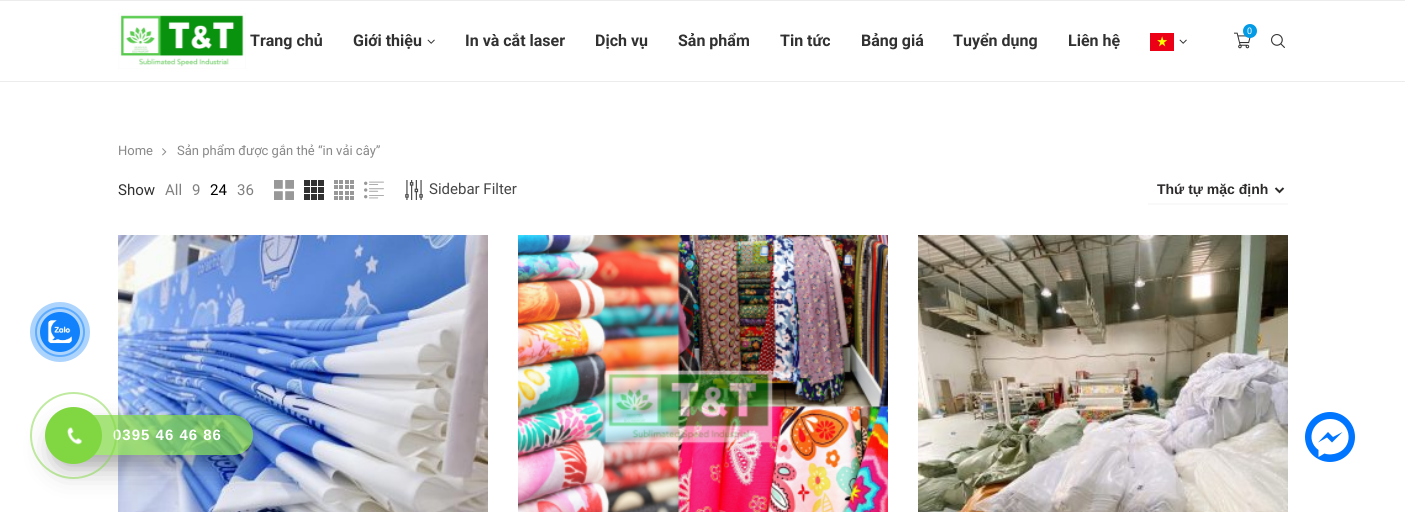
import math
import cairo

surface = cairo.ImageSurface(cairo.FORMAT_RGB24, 1405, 512)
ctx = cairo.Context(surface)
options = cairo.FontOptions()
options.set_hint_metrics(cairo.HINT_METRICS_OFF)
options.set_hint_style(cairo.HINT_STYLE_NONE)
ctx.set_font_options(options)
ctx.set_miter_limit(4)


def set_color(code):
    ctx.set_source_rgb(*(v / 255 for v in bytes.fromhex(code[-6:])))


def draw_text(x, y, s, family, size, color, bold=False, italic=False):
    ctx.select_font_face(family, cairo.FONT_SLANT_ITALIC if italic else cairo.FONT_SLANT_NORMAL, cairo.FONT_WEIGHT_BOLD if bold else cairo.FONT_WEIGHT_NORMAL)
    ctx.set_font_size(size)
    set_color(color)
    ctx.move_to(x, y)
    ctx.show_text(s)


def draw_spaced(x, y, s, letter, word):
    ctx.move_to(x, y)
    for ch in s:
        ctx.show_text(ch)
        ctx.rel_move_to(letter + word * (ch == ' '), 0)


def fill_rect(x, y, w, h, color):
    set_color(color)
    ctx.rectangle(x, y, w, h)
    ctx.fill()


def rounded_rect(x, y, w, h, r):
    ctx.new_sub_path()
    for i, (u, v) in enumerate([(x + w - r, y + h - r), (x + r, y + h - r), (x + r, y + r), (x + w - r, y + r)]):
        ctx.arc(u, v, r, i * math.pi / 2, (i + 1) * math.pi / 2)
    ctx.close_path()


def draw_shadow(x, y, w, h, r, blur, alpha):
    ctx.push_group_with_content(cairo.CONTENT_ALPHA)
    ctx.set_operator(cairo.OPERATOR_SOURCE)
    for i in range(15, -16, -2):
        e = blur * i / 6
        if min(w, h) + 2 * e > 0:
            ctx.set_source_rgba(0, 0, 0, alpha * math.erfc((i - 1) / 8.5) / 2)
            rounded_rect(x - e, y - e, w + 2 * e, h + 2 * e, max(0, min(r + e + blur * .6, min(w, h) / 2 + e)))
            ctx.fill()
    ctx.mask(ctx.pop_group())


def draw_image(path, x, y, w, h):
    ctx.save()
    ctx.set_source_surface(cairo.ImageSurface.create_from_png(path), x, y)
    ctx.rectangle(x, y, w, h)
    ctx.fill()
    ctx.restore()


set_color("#ffffff")
ctx.paint()
fill_rect(0, 0, 1405, 1, "#ececec")
fill_rect(0, 81, 1405, 1, "#ececec")
draw_image("assets/img1.png", 118, 13, 128, 56)
draw_image("assets/img2.png", 1234, 32, 17, 17)
set_color("#039be5")
ctx.arc(1250, 31, 7, 0, 2 * math.pi)
ctx.fill()
draw_text(1247, 34, "0", "Roboto", 9, "#ffffff")
draw_text(250, 46, "Trang chủ", "Roboto", 16, "#313131", bold=True)
draw_text(353, 46, "Giới thiệu", "Roboto", 16, "#313131", bold=True)
draw_image("assets/img3.png", 427, 39, 8, 5)
draw_text(465, 46, "In và cắt laser", "Roboto", 16, "#313131", bold=True)
draw_text(595, 46, "Dịch vụ", "Roboto", 16, "#313131", bold=True)
draw_text(678, 46, "Sản phẩm", "Roboto", 16, "#313131", bold=True)
draw_text(780, 46, "Tin tức", "Roboto", 16, "#313131", bold=True)
draw_text(861, 46, "Bảng giá", "Roboto", 16, "#313131", bold=True)
draw_text(953, 46, "Tuyển dụng", "Roboto", 16, "#313131", bold=True)
draw_text(1068, 46, "Liên hệ", "Roboto", 16, "#313131", bold=True)
draw_image("assets/img4.png", 1150, 33, 24, 18)
draw_image("assets/img3.png", 1179, 39, 8, 5)
draw_image("assets/img5.png", 1271, 34, 14, 14)
draw_text(118, 155, "Home", "Roboto", 13, "#888888")
draw_image("assets/img6.png", 162, 148, 5, 8)
draw_text(177, 155, "Sản phẩm được gắn thẻ “in vải cây”", "Roboto", 13, "#888888")
draw_text(118, 195, "Show", "Roboto", 15, "#313131")
draw_text(165, 195, "All", "Roboto", 15, "#808080")
draw_text(192, 195, "9", "Roboto", 15, "#808080")
draw_text(210, 195, "24", "Roboto", 15, "#000000")
draw_text(237, 195, "36", "Roboto", 15, "#808080")
draw_image("assets/img7.png", 274, 180, 20, 20)
draw_image("assets/img8.png", 304, 180, 20, 20)
draw_image("assets/img9.png", 334, 180, 20, 20)
draw_image("assets/img10.png", 364, 181, 20, 18)
draw_image("assets/img11.png", 405, 180, 18, 20)
draw_text(429, 194, "Sidebar Filter", "Roboto", 15, "#464646")
fill_rect(1148, 203, 140, 2, "#f9f9f9")
ctx.new_path()
ctx.move_to(1275.5, 188)
ctx.line_to(1279.5, 192)
ctx.line_to(1283.5, 188)
set_color("#2d2a2a")
ctx.stroke()
draw_text(1157, 194, "Thứ tự mặc định", "Liberation Sans", 14, "#2d2a2a", bold=True)
draw_image("assets/img12.png", 118, 235, 370, 277)
draw_image("assets/img13.png", 518, 235, 370, 277)
draw_image("assets/img14.png", 918, 235, 370, 277)
ctx.arc(60, 332, 24, 0, 2 * math.pi)
set_color("#88c1fe")
ctx.stroke()
ctx.set_source_rgba(0.067, 0.51, 0.988, 0.34)
ctx.arc(60, 332, 30, 0, 2 * math.pi)
ctx.fill()
set_color("#1182fc")
ctx.arc(60, 332, 20, 0, 2 * math.pi)
ctx.fill()
draw_image("assets/img15.png", 47, 320, 25, 24)
ctx.save()
ctx.set_fill_rule(cairo.FILL_RULE_EVEN_ODD)
ctx.new_path()
ctx.move_to(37, 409)
ctx.line_to(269, 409)
ctx.line_to(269, 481)
ctx.line_to(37, 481)
ctx.close_path()
ctx.move_to(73, 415)
ctx.line_to(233, 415)
ctx.curve_to(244, 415, 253, 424, 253, 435)
ctx.curve_to(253, 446, 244, 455, 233, 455)
ctx.line_to(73, 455)
ctx.curve_to(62, 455, 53, 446, 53, 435)
ctx.curve_to(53, 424, 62, 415, 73, 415)
ctx.close_path()
ctx.clip()
set_color("#000000")
draw_shadow(53, 425, 200, 40, 20, 5, 0.1)
ctx.restore()
ctx.save()
ctx.set_fill_rule(cairo.FILL_RULE_EVEN_ODD)
ctx.new_path()
ctx.move_to(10, 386)
ctx.line_to(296, 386)
ctx.line_to(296, 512)
ctx.line_to(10, 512)
ctx.close_path()
ctx.move_to(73, 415)
ctx.line_to(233, 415)
ctx.curve_to(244, 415, 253, 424, 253, 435)
ctx.curve_to(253, 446, 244, 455, 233, 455)
ctx.line_to(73, 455)
ctx.curve_to(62, 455, 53, 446, 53, 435)
ctx.curve_to(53, 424, 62, 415, 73, 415)
ctx.close_path()
ctx.clip()
set_color("#000000")
draw_shadow(53, 429, 200, 40, 20, 14, 0.25)
ctx.restore()
ctx.set_source_rgba(0.506, 0.843, 0.259, 0.7)
rounded_rect(53, 415, 200, 40, 20)
ctx.fill()
ctx.set_font_size(15)
set_color("#ffffff")
draw_spaced(113, 440, "0395 46 46 86", 1, 0)
ctx.new_path()
ctx.arc(73.5, 435.5, 42.5, 0, 2 * math.pi)
ctx.set_source_rgba(0.506, 0.843, 0.259, 0.5)
ctx.stroke()
set_color("#81d742")
ctx.arc(73.5, 435.5, 28.5, 0, 2 * math.pi)
ctx.fill()
draw_image("assets/img16.png", 67, 427, 16, 18)
set_color("#0075ff")
ctx.arc(1330, 437, 25, 0, 2 * math.pi)
ctx.fill()
set_color("#ffffff")
ctx.new_path()
ctx.move_to(1330, 419)
ctx.curve_to(1313, 419, 1304.5, 440, 1318.5, 450)
ctx.line_to(1318.5, 457)
ctx.line_to(1324.5, 453.5)
ctx.curve_to(1328.5, 455, 1333.5, 454.5, 1337.5, 453)
ctx.curve_to(1356, 445.5, 1350, 419, 1330, 419)
ctx.close_path()
ctx.move_to(1332, 442.5)
ctx.line_to(1327, 437.5)
ctx.line_to(1318, 442.5)
ctx.line_to(1328, 432)
ctx.line_to(1333, 437)
ctx.line_to(1342.5, 432)
ctx.close_path()
ctx.fill()
surface.write_to_png("output.png")
